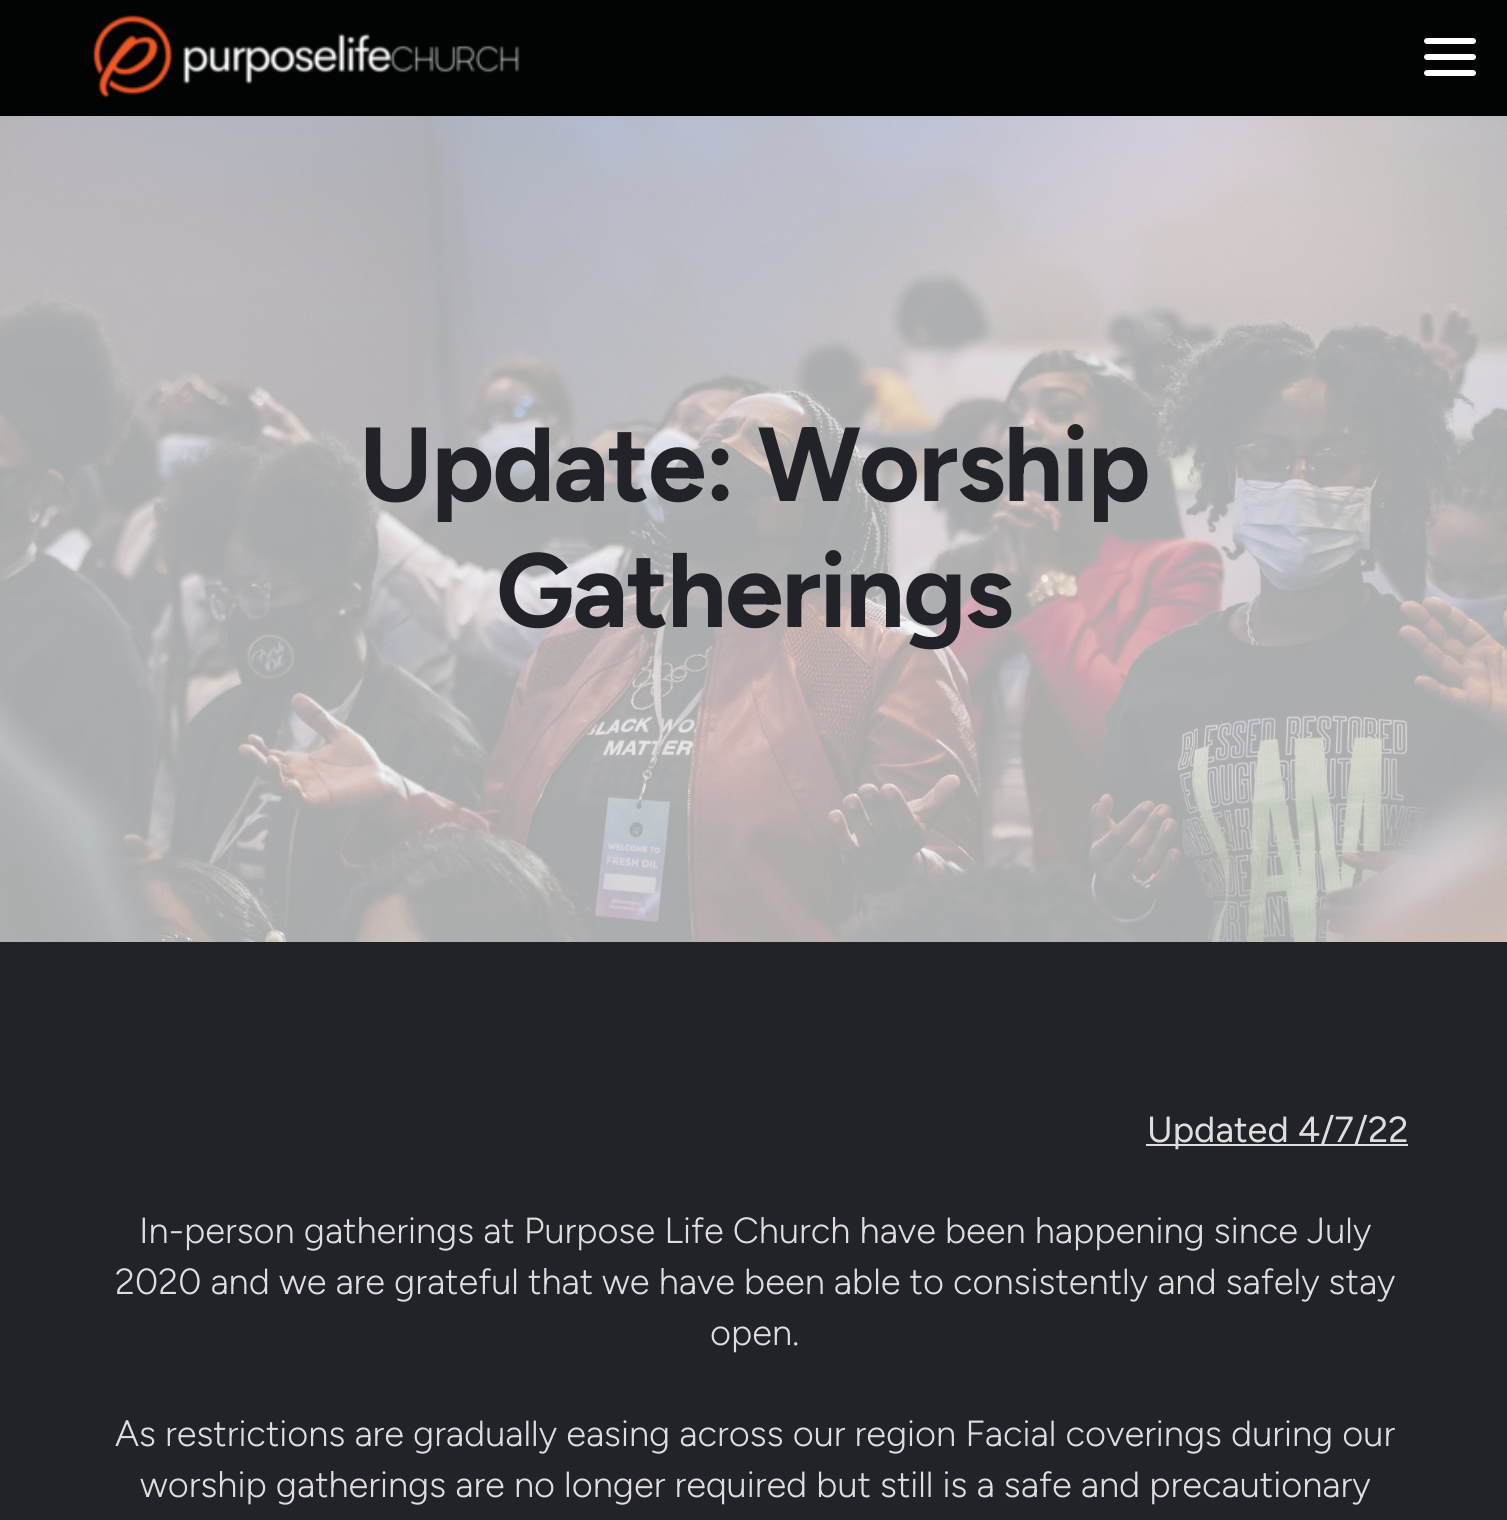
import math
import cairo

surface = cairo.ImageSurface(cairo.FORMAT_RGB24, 1507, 1520)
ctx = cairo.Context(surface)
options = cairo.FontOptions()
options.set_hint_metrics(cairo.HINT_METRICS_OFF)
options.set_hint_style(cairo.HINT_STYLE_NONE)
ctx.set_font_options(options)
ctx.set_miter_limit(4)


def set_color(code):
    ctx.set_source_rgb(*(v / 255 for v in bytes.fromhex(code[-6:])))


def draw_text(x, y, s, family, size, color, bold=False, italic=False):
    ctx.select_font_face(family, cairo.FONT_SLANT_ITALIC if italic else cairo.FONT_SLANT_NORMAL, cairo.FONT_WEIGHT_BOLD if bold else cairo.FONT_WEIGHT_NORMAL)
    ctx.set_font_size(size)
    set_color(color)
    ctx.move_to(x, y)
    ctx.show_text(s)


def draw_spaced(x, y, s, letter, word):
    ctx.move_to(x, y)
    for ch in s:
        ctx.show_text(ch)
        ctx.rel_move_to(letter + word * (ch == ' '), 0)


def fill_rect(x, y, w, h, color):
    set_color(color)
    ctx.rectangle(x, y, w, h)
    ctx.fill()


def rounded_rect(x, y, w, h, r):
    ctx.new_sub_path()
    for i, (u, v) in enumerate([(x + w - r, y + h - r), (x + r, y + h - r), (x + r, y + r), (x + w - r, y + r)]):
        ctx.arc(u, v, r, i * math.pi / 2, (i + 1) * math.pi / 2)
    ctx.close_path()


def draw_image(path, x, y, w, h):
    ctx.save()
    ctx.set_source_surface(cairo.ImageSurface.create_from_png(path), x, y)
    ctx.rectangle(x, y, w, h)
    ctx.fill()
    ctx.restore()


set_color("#ffffff")
ctx.paint()
fill_rect(0, 0, 1507, 116, "#020303")
draw_image("assets/img1.png", 92, 14, 428, 85)
set_color("#ffffff")
rounded_rect(1424, 38, 52, 6, 3)
ctx.fill()
rounded_rect(1424, 54, 52, 6, 3)
ctx.fill()
rounded_rect(1424, 70, 52, 6, 3)
ctx.fill()
draw_image("assets/img2.png", 0, 116, 1507, 826)
ctx.select_font_face("Figtree Light")
ctx.set_font_size(105)
set_color("#212329")
draw_spaced(359, 501, "Update: Worship", -1.75, 0)
draw_spaced(496, 627, "Gatherings", -1.75, 0)
fill_rect(0, 942, 1507, 578, "#212329")
fill_rect(1146, 1144, 262, 2, "#dededf")
draw_text(1147, 1142, "Updated 4/7/22", "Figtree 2 Light", 36.3, "#dededf")
draw_text(139, 1243, "In-person gatherings at Purpose Life Church have been happening since July", "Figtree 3 Light", 36.3, "#dededf")
draw_text(115, 1294, "2020 and we are grateful that we have been able to consistently and safely stay", "Figtree 3 Light", 36.3, "#dededf")
draw_text(710, 1345, "open.", "Figtree 3 Light", 36.3, "#dededf")
draw_text(115, 1446, "As restrictions are gradually easing across our region Facial coverings during our", "Figtree 3 Light", 36.3, "#dededf")
draw_text(140, 1497, "worship gatherings are no longer required but still is a safe and precautionary", "Figtree 3 Light", 36.3, "#dededf")
surface.write_to_png("output.png")
